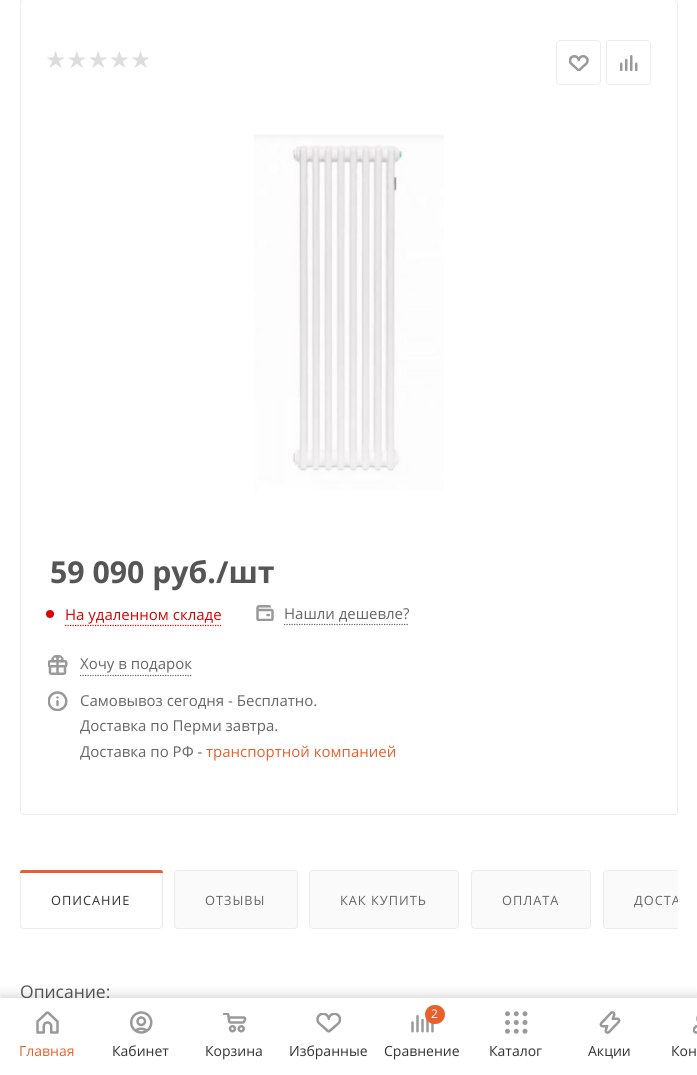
import math
import cairo

surface = cairo.ImageSurface(cairo.FORMAT_RGB24, 697, 1075)
ctx = cairo.Context(surface)
options = cairo.FontOptions()
options.set_hint_metrics(cairo.HINT_METRICS_OFF)
options.set_hint_style(cairo.HINT_STYLE_NONE)
ctx.set_font_options(options)
ctx.set_miter_limit(4)


def set_color(code):
    ctx.set_source_rgb(*(v / 255 for v in bytes.fromhex(code[-6:])))


def draw_text(x, y, s, family, size, color, bold=False, italic=False):
    ctx.select_font_face(family, cairo.FONT_SLANT_ITALIC if italic else cairo.FONT_SLANT_NORMAL, cairo.FONT_WEIGHT_BOLD if bold else cairo.FONT_WEIGHT_NORMAL)
    ctx.set_font_size(size)
    set_color(color)
    ctx.move_to(x, y)
    ctx.show_text(s)


def draw_spaced(x, y, s, letter, word):
    ctx.move_to(x, y)
    for ch in s:
        ctx.show_text(ch)
        ctx.rel_move_to(letter + word * (ch == ' '), 0)


def fill_rect(x, y, w, h, color):
    set_color(color)
    ctx.rectangle(x, y, w, h)
    ctx.fill()


def rounded_rect(x, y, w, h, r):
    ctx.new_sub_path()
    for i, (u, v) in enumerate([(x + w - r, y + h - r), (x + r, y + h - r), (x + r, y + r), (x + w - r, y + r)]):
        ctx.arc(u, v, r, i * math.pi / 2, (i + 1) * math.pi / 2)
    ctx.close_path()


def draw_shadow(x, y, w, h, r, blur, alpha):
    ctx.push_group_with_content(cairo.CONTENT_ALPHA)
    ctx.set_operator(cairo.OPERATOR_SOURCE)
    for i in range(15, -16, -2):
        e = blur * i / 6
        if min(w, h) + 2 * e > 0:
            ctx.set_source_rgba(0, 0, 0, alpha * math.erfc((i - 1) / 8.5) / 2)
            rounded_rect(x - e, y - e, w + 2 * e, h + 2 * e, max(0, min(r + e + blur * .6, min(w, h) / 2 + e)))
            ctx.fill()
    ctx.mask(ctx.pop_group())


def draw_image(path, x, y, w, h):
    ctx.save()
    ctx.set_source_surface(cairo.ImageSurface.create_from_png(path), x, y)
    ctx.rectangle(x, y, w, h)
    ctx.fill()
    ctx.restore()


set_color("#ffffff")
ctx.paint()
rounded_rect(20.5, -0.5, 657, 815, 3.5)
set_color("#ececec")
ctx.set_line_width(1)
ctx.stroke()
draw_image("assets/img1.png", 47, 51, 17, 17)
draw_image("assets/img2.png", 68, 51, 18, 17)
draw_image("assets/img3.png", 89, 51, 18, 17)
draw_image("assets/img4.png", 111, 51, 17, 17)
draw_image("assets/img1.png", 132, 51, 17, 17)
rounded_rect(556.5, 40.5, 44, 44, 3.5)
ctx.stroke()
draw_image("assets/img5.png", 569, 55, 20, 16)
rounded_rect(606.5, 40.5, 44, 44, 3.5)
ctx.stroke()
draw_image("assets/img6.png", 620, 55, 18, 16)
draw_image("assets/img7.png", 254, 134, 190, 357)
draw_text(50, 583, "59 090 руб./шт", "Open Sans", 30.25, "#555555", bold=True)
set_color("#e10000")
ctx.new_path()
ctx.arc(50, 614, 4, 0, 2 * math.pi)
ctx.fill()
draw_text(65, 620, "На удаленном складе", "Open Sans", 15, "#e10000")
ctx.new_path()
ctx.move_to(65, 625.5)
ctx.line_to(221, 625.5)
ctx.set_line_width(1.2)
ctx.set_dash([1.25, 1.25])
ctx.stroke()
draw_image("assets/img8.png", 256, 605, 18, 16)
draw_text(284, 619, "Нашли дешевле?", "Open Sans", 15, "#666666")
ctx.new_path()
ctx.move_to(284, 624.5)
ctx.line_to(409, 624.5)
ctx.stroke()
draw_image("assets/img9.png", 48, 655, 20, 20)
draw_text(80, 669, "Хочу в подарок", "Open Sans", 15, "#666666")
ctx.new_path()
ctx.move_to(80, 675.5)
ctx.line_to(192.5, 675.5)
ctx.stroke()
draw_image("assets/img10.png", 48, 691, 20, 20)
draw_text(80, 706, "Самовывоз сегодня - Бесплатно.", "Open Sans", 15, "#666666")
draw_text(80, 731, "Доставка по Перми завтра.", "Open Sans", 15, "#666666")
draw_text(80, 757, "Доставка по РФ -", "Open Sans", 15, "#666666")
draw_text(206, 757, "транспортной компанией", "Open Sans", 15, "#e8612d")
set_color("#fafafa")
rounded_rect(20.5, 870.5, 142, 58, 3.5)
ctx.fill_preserve()
set_color("#ececec")
ctx.set_line_width(1)
ctx.set_dash([])
ctx.stroke()
set_color("#ffffff")
rounded_rect(21, 871, 140, 57, 4)
ctx.fill()
set_color("#e8612d")
ctx.new_path()
ctx.move_to(22.5, 870)
ctx.line_to(160.5, 870)
ctx.curve_to(162, 870, 163, 871, 163, 872.5)
ctx.line_to(163, 873)
ctx.line_to(20, 873)
ctx.line_to(20, 872.5)
ctx.curve_to(20, 871, 21, 870, 22.5, 870)
ctx.close_path()
ctx.fill()
ctx.set_font_size(12.75)
set_color("#333333")
draw_spaced(51, 905, "ОПИСАНИЕ", 1, 0)
set_color("#fafafa")
rounded_rect(174.5, 870.5, 123, 58, 3.5)
ctx.fill_preserve()
set_color("#ececec")
ctx.stroke()
set_color("#666666")
draw_spaced(205, 905, "ОТЗЫВЫ", 1, 0)
set_color("#fafafa")
rounded_rect(309.5, 870.5, 149, 58, 3.5)
ctx.fill_preserve()
set_color("#ececec")
ctx.stroke()
set_color("#666666")
draw_spaced(340, 905, "КАК КУПИТЬ", 1, 0)
set_color("#fafafa")
rounded_rect(471.5, 870.5, 119, 58, 3.5)
ctx.fill_preserve()
set_color("#ececec")
ctx.stroke()
set_color("#666666")
draw_spaced(502, 905, "ОПЛАТА", 1, 0)
set_color("#fafafa")
ctx.new_path()
ctx.move_to(607, 870)
ctx.line_to(678, 870)
ctx.line_to(678, 929)
ctx.line_to(607, 929)
ctx.curve_to(605, 929, 603, 927, 603, 925)
ctx.line_to(603, 874)
ctx.curve_to(603, 872, 605, 870, 607, 870)
ctx.close_path()
ctx.fill()
ctx.save()
ctx.rectangle(20, 870, 658, 59)
ctx.clip()
rounded_rect(603.5, 870.5, 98, 58, 3.5)
set_color("#ececec")
ctx.stroke()
set_color("#666666")
draw_spaced(634, 905, "ДОСТА", 1, 0)
ctx.restore()
draw_text(20, 998, "Описание:", "Open Sans", 17.5, "#555555")
set_color("#000000")
draw_shadow(0, 995, 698, 78, 0, 5, 0.15)
fill_rect(0, 998, 697, 77, "#ffffff")
draw_image("assets/img11.png", 36, 1011, 23, 23)
draw_text(19, 1056, "Главная", "Open Sans", 14, "#e8612d")
draw_image("assets/img12.png", 130, 1011, 23, 23)
draw_text(112, 1056, "Кабинет", "Open Sans", 14, "#333333")
draw_image("assets/img13.png", 223, 1013, 24, 20)
draw_text(205, 1056, "Корзина", "Open Sans", 14, "#333333")
draw_image("assets/img14.png", 316, 1013, 25, 20)
draw_text(289, 1056, "Избранные", "Open Sans", 14, "#333333")
draw_image("assets/img15.png", 411, 1015, 23, 18)
set_color("#e8612d")
rounded_rect(425, 1005, 20, 19, 9.5)
ctx.fill()
draw_text(431, 1018, "2", "Open Sans", 12, "#ffffff")
draw_text(384, 1056, "Сравнение", "Open Sans", 14, "#333333")
draw_image("assets/img16.png", 505, 1011, 23, 23)
draw_text(489, 1056, "Каталог", "Open Sans", 14, "#333333")
draw_image("assets/img17.png", 599, 1011, 22, 23)
draw_text(588, 1056, "Акции", "Open Sans", 14, "#333333")
draw_image("assets/img18.png", 693, 1015, 4, 19)
draw_text(671, 1056, "Кон", "Open Sans", 14, "#333333")
surface.write_to_png("output.png")
